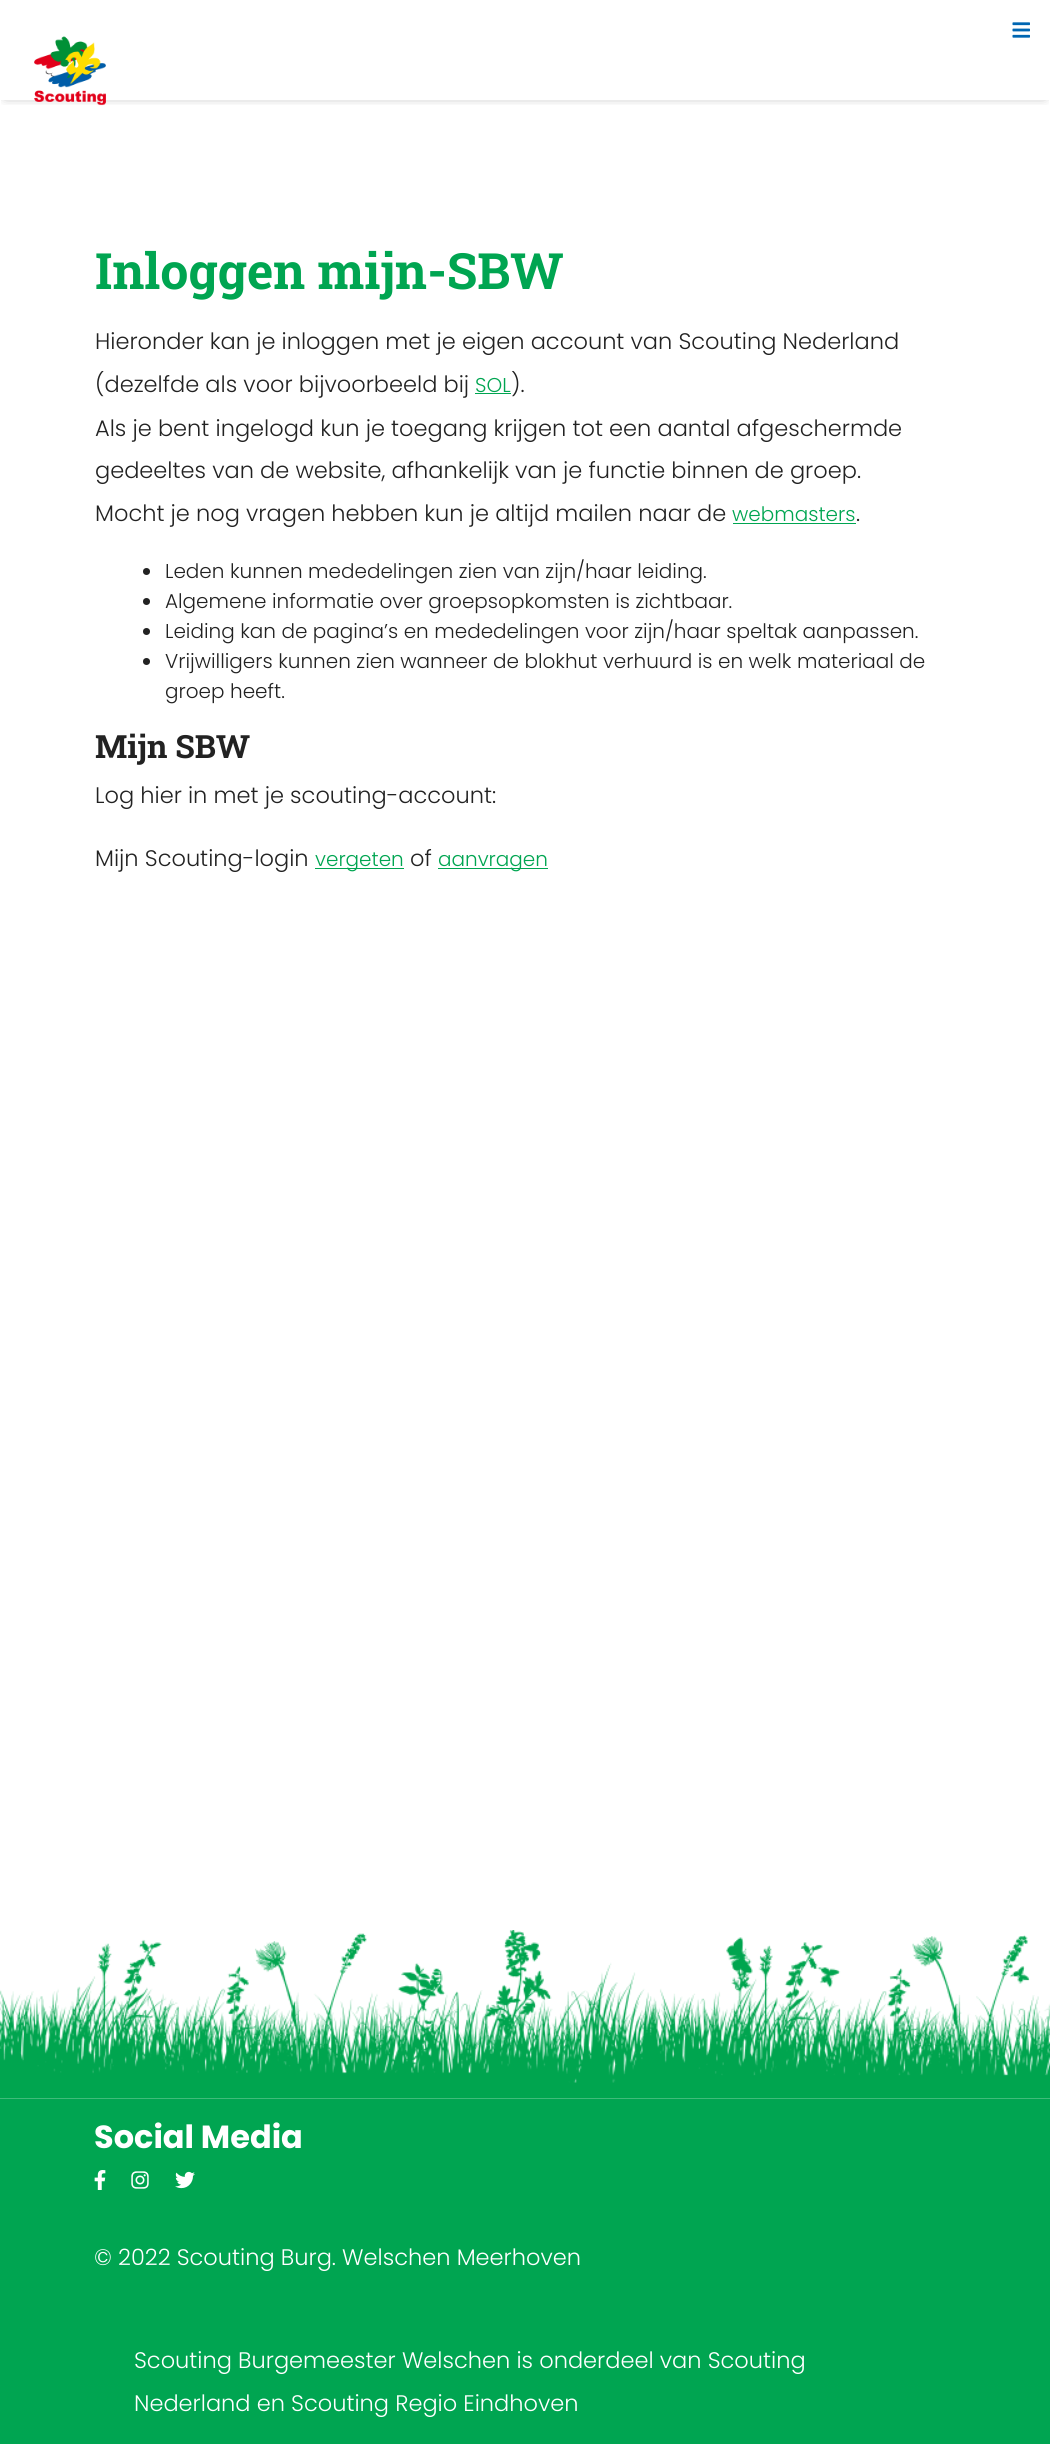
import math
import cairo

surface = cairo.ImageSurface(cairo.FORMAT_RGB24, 1050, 2444)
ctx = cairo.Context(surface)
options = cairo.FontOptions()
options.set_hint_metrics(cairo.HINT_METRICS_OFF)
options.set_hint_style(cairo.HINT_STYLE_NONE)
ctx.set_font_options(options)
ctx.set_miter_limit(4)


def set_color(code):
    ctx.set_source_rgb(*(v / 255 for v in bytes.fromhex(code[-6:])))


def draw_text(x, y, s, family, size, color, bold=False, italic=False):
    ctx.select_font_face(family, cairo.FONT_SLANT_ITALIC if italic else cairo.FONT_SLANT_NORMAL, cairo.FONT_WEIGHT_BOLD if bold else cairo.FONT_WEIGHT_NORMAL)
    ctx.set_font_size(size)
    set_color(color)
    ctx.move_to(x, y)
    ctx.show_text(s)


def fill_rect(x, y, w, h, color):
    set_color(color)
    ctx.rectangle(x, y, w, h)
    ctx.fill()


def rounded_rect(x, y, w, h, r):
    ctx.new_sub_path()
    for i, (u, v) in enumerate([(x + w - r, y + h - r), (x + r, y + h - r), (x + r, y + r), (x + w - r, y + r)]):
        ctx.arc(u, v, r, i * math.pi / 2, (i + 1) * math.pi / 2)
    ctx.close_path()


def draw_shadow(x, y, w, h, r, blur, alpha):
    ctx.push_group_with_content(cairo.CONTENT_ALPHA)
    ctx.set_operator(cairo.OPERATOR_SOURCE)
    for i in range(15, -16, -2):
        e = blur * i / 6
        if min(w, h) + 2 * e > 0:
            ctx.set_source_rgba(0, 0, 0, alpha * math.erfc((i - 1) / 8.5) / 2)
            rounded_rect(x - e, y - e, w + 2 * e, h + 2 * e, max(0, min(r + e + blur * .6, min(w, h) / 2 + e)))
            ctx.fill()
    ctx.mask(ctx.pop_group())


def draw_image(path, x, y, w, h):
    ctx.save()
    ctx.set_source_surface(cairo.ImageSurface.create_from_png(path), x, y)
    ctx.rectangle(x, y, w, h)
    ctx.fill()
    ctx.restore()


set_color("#ffffff")
ctx.paint()
ctx.save()
ctx.rectangle(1, 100, 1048, 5)
ctx.clip()
set_color("#000000")
draw_shadow(6, 8, 1038, 87, 0, 6, 0.5)
ctx.restore()
draw_image("assets/img1.png", 1012, 22, 18, 16)
draw_image("assets/img2.png", 34, 36, 72, 70)
draw_text(95, 289, "Inloggen mijn-SBW", "Roboto Slab", 50, "#00a551", bold=True)
draw_text(95, 349, "Hieronder kan je inloggen met je eigen account van Scouting Nederland", "Poppins Light", 22.5, "#222222")
draw_text(95, 392, "(dezelfde als voor bijvoorbeeld bij", "Poppins Light", 22.5, "#222222")
draw_text(475, 392, "SOL", "Poppins Light", 20, "#00a551")
fill_rect(475, 393, 36, 1, "#00a551")
draw_text(511, 392, ").", "Poppins Light", 22.5, "#222222")
draw_text(95, 436, "Als je bent ingelogd kun je toegang krijgen tot een aantal afgeschermde", "Poppins Light", 22.5, "#222222")
draw_text(95, 478, "gedeeltes van de website, afhankelijk van je functie binnen de groep.", "Poppins Light", 22.5, "#222222")
draw_text(95, 521, "Mocht je nog vragen hebben kun je altijd mailen naar de", "Poppins Light", 22.5, "#222222")
draw_text(732, 521, "webmasters", "Poppins Light", 20, "#00a551")
fill_rect(733, 523, 123, 1, "#00a551")
draw_text(856, 521, ".", "Poppins Light", 22.5, "#222222")
ctx.new_path()
ctx.arc(146.5, 571.5, 3.5, 0, 2 * math.pi)
ctx.fill()
draw_text(165, 578, "Leden kunnen mededelingen zien van zijn/haar leiding.", "Poppins Light", 20, "#222222")
ctx.new_path()
ctx.arc(146.5, 601.5, 3.5, 0, 2 * math.pi)
ctx.fill()
draw_text(165, 608, "Algemene informatie over groepsopkomsten is zichtbaar.", "Poppins Light", 20, "#222222")
ctx.new_path()
ctx.arc(146.5, 631.5, 3.5, 0, 2 * math.pi)
ctx.fill()
draw_text(165, 638, "Leiding kan de pagina’s en mededelingen voor zijn/haar speltak aanpassen.", "Poppins Light", 20, "#222222")
ctx.new_path()
ctx.arc(146.5, 661.5, 3.5, 0, 2 * math.pi)
ctx.fill()
draw_text(165, 668, "Vrijwilligers kunnen zien wanneer de blokhut verhuurd is en welk materiaal de", "Poppins Light", 20, "#222222")
draw_text(165, 698, "groep heeft.", "Poppins Light", 20, "#222222")
draw_text(95, 758, "Mijn SBW", "Roboto Slab", 32, "#222222", bold=True)
draw_text(95, 803, "Log hier in met je scouting-account:", "Poppins Light", 22.5, "#222222")
draw_text(95, 866, "Mijn Scouting-login", "Poppins Light", 22.5, "#222222")
fill_rect(315, 868, 89, 1, "#00a551")
draw_text(315, 866, "vergeten", "Poppins Light", 20, "#00a551")
draw_text(410, 866, "of", "Poppins Light", 22.5, "#222222")
fill_rect(438, 868, 110, 1, "#00a551")
draw_text(438, 866, "aanvragen", "Poppins Light", 20, "#00a551")
fill_rect(0, 2099, 1050, 345, "#00a551")
draw_image("assets/img3.png", 0, 1930, 1050, 169)
draw_text(94, 2148, "Social Media", "Poppins", 32, "#ffffff", bold=True)
draw_image("assets/img4.png", 94, 2170, 12, 20)
draw_image("assets/img5.png", 131, 2171, 18, 18)
draw_image("assets/img6.png", 175, 2171, 20, 18)
draw_text(94, 2265, "© 2022 Scouting Burg. Welschen Meerhoven", "Poppins Light", 22.5, "#ffffff")
draw_text(134, 2368, "Scouting Burgemeester Welschen is onderdeel van Scouting", "Poppins Light", 22.5, "#ffffff")
draw_text(134, 2411, "Nederland en Scouting Regio Eindhoven", "Poppins Light", 22.5, "#ffffff")
surface.write_to_png("output.png")
